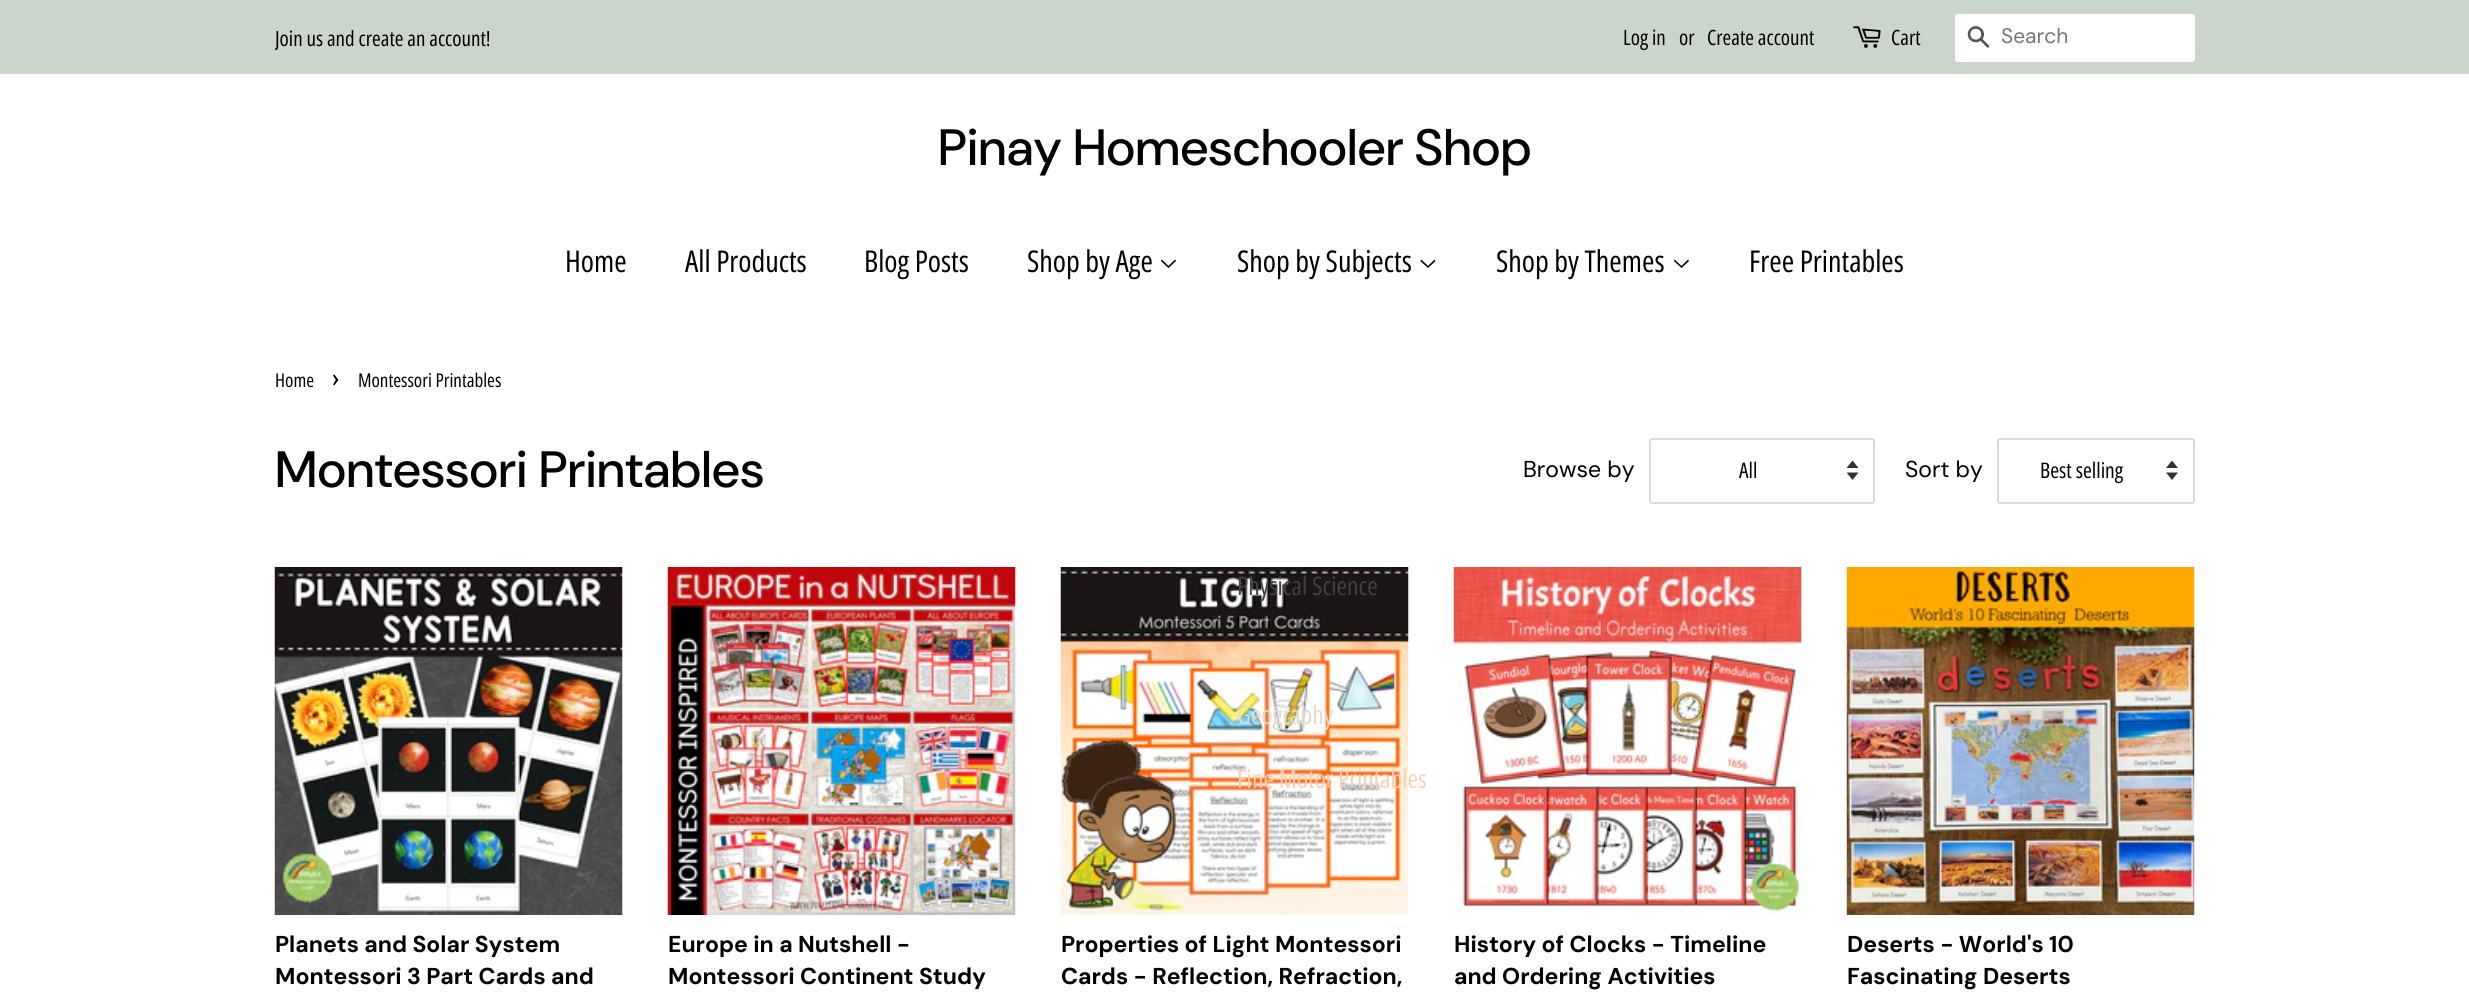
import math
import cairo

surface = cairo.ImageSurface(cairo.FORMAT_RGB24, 2469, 1007)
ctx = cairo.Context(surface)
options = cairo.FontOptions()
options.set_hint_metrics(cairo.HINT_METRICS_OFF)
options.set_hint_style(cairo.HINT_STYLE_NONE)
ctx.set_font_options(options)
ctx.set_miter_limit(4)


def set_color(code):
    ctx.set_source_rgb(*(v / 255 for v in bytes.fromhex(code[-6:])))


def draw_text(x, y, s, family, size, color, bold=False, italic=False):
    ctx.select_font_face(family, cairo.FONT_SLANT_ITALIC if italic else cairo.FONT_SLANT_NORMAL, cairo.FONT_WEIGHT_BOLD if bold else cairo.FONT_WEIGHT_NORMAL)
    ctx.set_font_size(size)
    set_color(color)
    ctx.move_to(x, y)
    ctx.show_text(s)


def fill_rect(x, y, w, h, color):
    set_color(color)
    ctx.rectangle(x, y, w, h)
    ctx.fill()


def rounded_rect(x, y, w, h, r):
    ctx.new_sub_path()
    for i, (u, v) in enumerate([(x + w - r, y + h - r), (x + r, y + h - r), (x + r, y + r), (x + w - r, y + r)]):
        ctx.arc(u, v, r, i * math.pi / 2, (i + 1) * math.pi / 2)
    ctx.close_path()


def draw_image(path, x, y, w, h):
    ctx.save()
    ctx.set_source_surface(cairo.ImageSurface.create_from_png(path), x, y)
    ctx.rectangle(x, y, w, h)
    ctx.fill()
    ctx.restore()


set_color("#ffffff")
ctx.paint()
fill_rect(0, 0, 2469, 74, "#cbd5cc")
ctx.save()
ctx.rectangle(275, 20, 216, 36)
ctx.clip()
draw_text(275, 46, "Join us and create an account!", "Open Sans Condensed", 21, "#000000")
ctx.restore()
draw_text(1623, 45, "Log in", "Open Sans Condensed", 21, "#000000")
draw_text(1679, 45, "or", "Open Sans Condensed", 21, "#000000")
draw_text(1707, 45, "Create account", "Open Sans Condensed", 21, "#000000")
draw_image("assets/img1.png", 1853, 26, 28, 22)
draw_text(1891, 45, "Cart", "Open Sans Condensed", 21, "#000000")
set_color("#ffffff")
rounded_rect(1955, 14, 240, 48, 3)
ctx.fill()
draw_image("assets/img2.png", 1967, 26, 23, 22)
draw_text(2001, 43, "Search", "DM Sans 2", 21, "#757575")
draw_text(938, 165, "Pinay Homeschooler Shop", "DM Sans Medium", 51, "#000000")
draw_text(565, 272, "Home", "Open Sans Condensed", 30, "#000000")
draw_text(685, 272, "All Products", "Open Sans Condensed", 30, "#000000")
draw_text(864, 272, "Blog Posts", "Open Sans Condensed", 30, "#000000")
draw_text(1027, 272, "Shop by Age", "Open Sans Condensed", 30, "#000000")
draw_image("assets/img3.png", 1161, 259, 15, 9)
draw_text(1237, 272, "Shop by Subjects", "Open Sans Condensed", 30, "#000000")
draw_image("assets/img4.png", 1420, 259, 16, 9)
draw_image("assets/img9.png", 1060, 567, 349, 348)
draw_text(1237, 595, "Physical Science", "Open Sans Condensed", 25.5, "#454040")
draw_text(1237, 724, "Geography", "Open Sans Condensed", 25.5, "#e0dccb")
draw_text(1237, 788, "Fine Motor Printables", "Open Sans Condensed", 25.5, "#faceb3")
draw_text(1496, 272, "Shop by Themes", "Open Sans Condensed", 30, "#000000")
draw_image("assets/img3.png", 1674, 259, 15, 9)
draw_text(1749, 272, "Free Printables", "Open Sans Condensed", 30, "#000000")
draw_text(275, 387, "Home", "Open Sans Condensed", 19, "#000000")
draw_text(332, 387, "›", "Open Sans Condensed", 27, "#000000")
draw_text(358, 387, "Montessori Printables", "Open Sans Condensed", 19, "#000000")
draw_text(275, 487, "Montessori Printables", "DM Sans Medium", 51, "#000000")
draw_text(1523, 477, "Browse by", "DM Sans", 23, "#000000")
draw_image("assets/img5.png", 1847, 461, 12, 19)
rounded_rect(1650, 439, 224, 64, 2)
set_color("#d9d9d9")
ctx.stroke()
draw_text(1739, 478, "All", "Open Sans Condensed", 21.5, "#000000")
draw_text(1905, 477, "Sort by", "DM Sans", 23, "#000000")
draw_image("assets/img6.png", 2166, 461, 12, 19)
rounded_rect(1998, 439, 196, 64, 2)
set_color("#d9d9d9")
ctx.stroke()
draw_text(2040, 478, "Best selling", "Open Sans Condensed", 21.5, "#000000")
draw_image("assets/img7.png", 274, 567, 349, 348)
draw_text(275, 952, "Planets and Solar System", "DM Sans", 23, "#000000", bold=True)
draw_text(275, 984, "Montessori 3 Part Cards and", "DM Sans", 23, "#000000", bold=True)
draw_image("assets/img8.png", 667, 567, 349, 348)
draw_text(668, 952, "Europe in a Nutshell -", "DM Sans", 23, "#000000", bold=True)
draw_text(668, 984, "Montessori Continent Study", "DM Sans", 23, "#000000", bold=True)
draw_text(1061, 952, "Properties of Light Montessori", "DM Sans", 23, "#000000", bold=True)
draw_text(1061, 984, "Cards - Reflection, Refraction,", "DM Sans", 23, "#000000", bold=True)
draw_image("assets/img10.png", 1453, 567, 349, 348)
draw_text(1454, 952, "History of Clocks - Timeline", "DM Sans", 23, "#000000", bold=True)
draw_text(1454, 984, "and Ordering Activities", "DM Sans", 23, "#000000", bold=True)
draw_image("assets/img11.png", 1846, 567, 349, 348)
draw_text(1847, 952, "Deserts - World's 10", "DM Sans", 23, "#000000", bold=True)
draw_text(1847, 984, "Fascinating Deserts", "DM Sans", 23, "#000000", bold=True)
surface.write_to_png("output.png")
